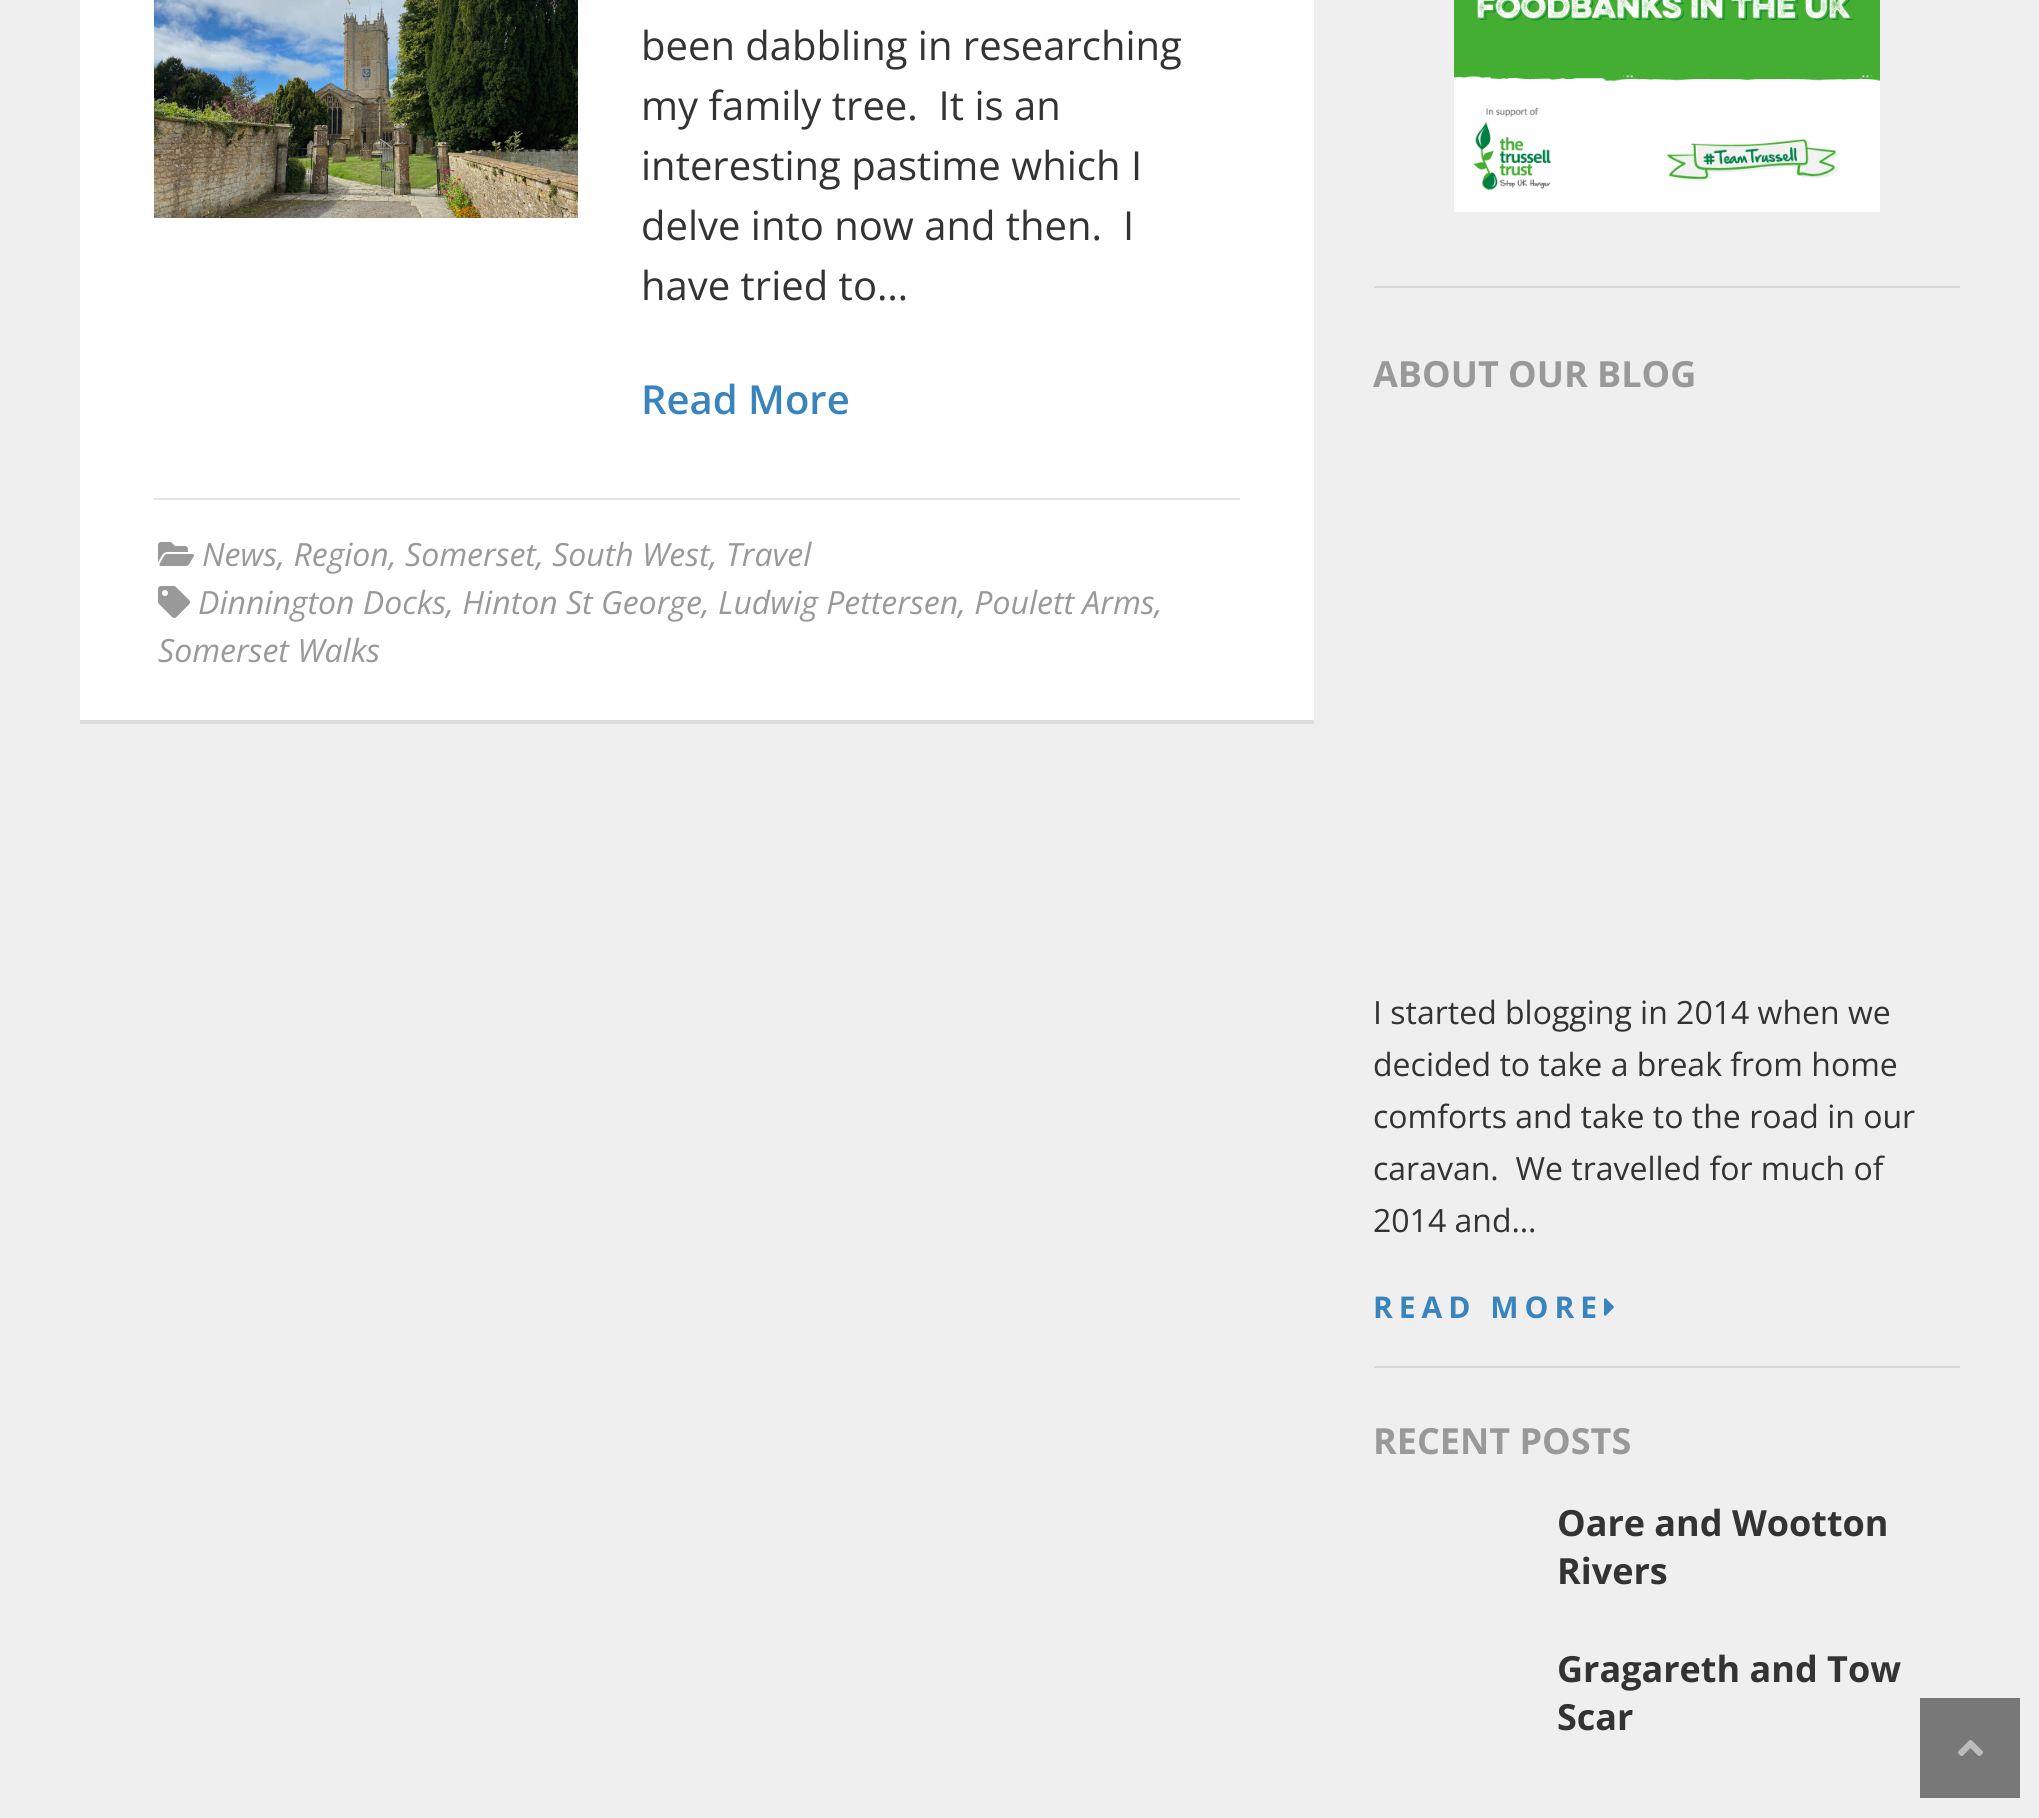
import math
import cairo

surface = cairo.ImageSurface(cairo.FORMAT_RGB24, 2039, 1818)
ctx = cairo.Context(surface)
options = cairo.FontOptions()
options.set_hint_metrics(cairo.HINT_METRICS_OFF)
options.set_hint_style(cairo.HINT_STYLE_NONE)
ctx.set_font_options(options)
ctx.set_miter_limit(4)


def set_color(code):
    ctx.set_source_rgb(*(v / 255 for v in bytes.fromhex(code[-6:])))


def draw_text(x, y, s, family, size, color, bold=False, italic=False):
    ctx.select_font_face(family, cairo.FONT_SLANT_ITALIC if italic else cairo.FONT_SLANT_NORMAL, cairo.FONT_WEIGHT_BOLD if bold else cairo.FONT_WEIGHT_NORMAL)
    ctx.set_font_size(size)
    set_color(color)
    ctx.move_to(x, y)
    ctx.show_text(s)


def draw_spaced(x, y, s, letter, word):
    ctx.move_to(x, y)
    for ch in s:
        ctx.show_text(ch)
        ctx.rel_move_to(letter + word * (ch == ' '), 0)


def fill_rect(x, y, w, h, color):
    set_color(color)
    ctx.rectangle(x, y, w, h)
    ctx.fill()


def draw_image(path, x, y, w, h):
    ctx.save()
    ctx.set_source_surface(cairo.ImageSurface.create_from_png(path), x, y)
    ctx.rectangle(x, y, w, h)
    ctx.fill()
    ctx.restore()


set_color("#efeff0")
ctx.paint()
fill_rect(80, 0, 1234, 720, "#ffffff")
fill_rect(80, 720, 1234, 4, "#dcdcdd")
draw_image("assets/img1.png", 154, 0, 424, 218)
draw_text(641, 60, "been dabbling in researching", "Open Sans", 40, "#333333")
draw_text(641, 120, "my family tree.  It is an", "Open Sans", 40, "#333333")
draw_text(641, 180, "interesting pastime which I", "Open Sans", 40, "#333333")
draw_text(641, 240, "delve into now and then.  I", "Open Sans", 40, "#333333")
draw_text(641, 300, "have tried to…", "Open Sans", 40, "#333333")
draw_text(641, 414, "Read More", "Open Sans SemiBold", 40, "#3984bc")
fill_rect(154, 498, 1086, 2, "#e5e5e5")
draw_image("assets/img2.png", 158, 542, 36, 24)
draw_text(202, 566, "News, Region, Somerset, South West, Travel", "Open Sans", 32, "#999999", italic=True)
draw_image("assets/img3.png", 158, 586, 32, 32)
draw_text(198, 614, "Dinnington Docks, Hinton St George, Ludwig Pettersen, Poulett Arms,", "Open Sans", 32, "#999999", italic=True)
draw_text(158, 662, "Somerset Walks", "Open Sans", 32, "#999999", italic=True)
fill_rect(1374, 286, 586, 2, "#d7d7d8")
draw_image("assets/img4.png", 1454, 0, 426, 212)
fill_rect(1374, 1366, 586, 2, "#d7d7d8")
draw_text(1373, 387, "ABOUT OUR BLOG", "Open Sans", 36, "#999999", bold=True)
draw_text(1373, 1024, "I started blogging in 2014 when we", "Open Sans", 32, "#333333")
draw_text(1373, 1076, "decided to take a break from home", "Open Sans", 32, "#333333")
draw_text(1373, 1128, "comforts and take to the road in our", "Open Sans", 32, "#333333")
draw_text(1373, 1180, "caravan.  We travelled for much of", "Open Sans", 32, "#333333")
draw_text(1373, 1232, "2014 and…", "Open Sans", 32, "#333333")
ctx.select_font_face("Open Sans", cairo.FONT_SLANT_NORMAL, cairo.FONT_WEIGHT_BOLD)
ctx.set_font_size(30)
set_color("#3984bc")
draw_spaced(1373, 1318, "READ MORE", 6, 0)
draw_image("assets/img5.png", 1604, 1298, 10, 18)
draw_text(1373, 1454, "RECENT POSTS", "Open Sans", 36, "#999999", bold=True)
draw_text(1557, 1536, "Oare and Wootton", "Open Sans", 36, "#333333", bold=True)
draw_text(1557, 1584, "Rivers", "Open Sans", 36, "#333333", bold=True)
draw_text(1557, 1682, "Gragareth and Tow", "Open Sans", 36, "#333333", bold=True)
draw_text(1557, 1730, "Scar", "Open Sans", 36, "#333333", bold=True)
fill_rect(1920, 1698, 100, 100, "#787878")
draw_image("assets/img6.png", 1958, 1740, 25, 16)
surface.write_to_png("output.png")
